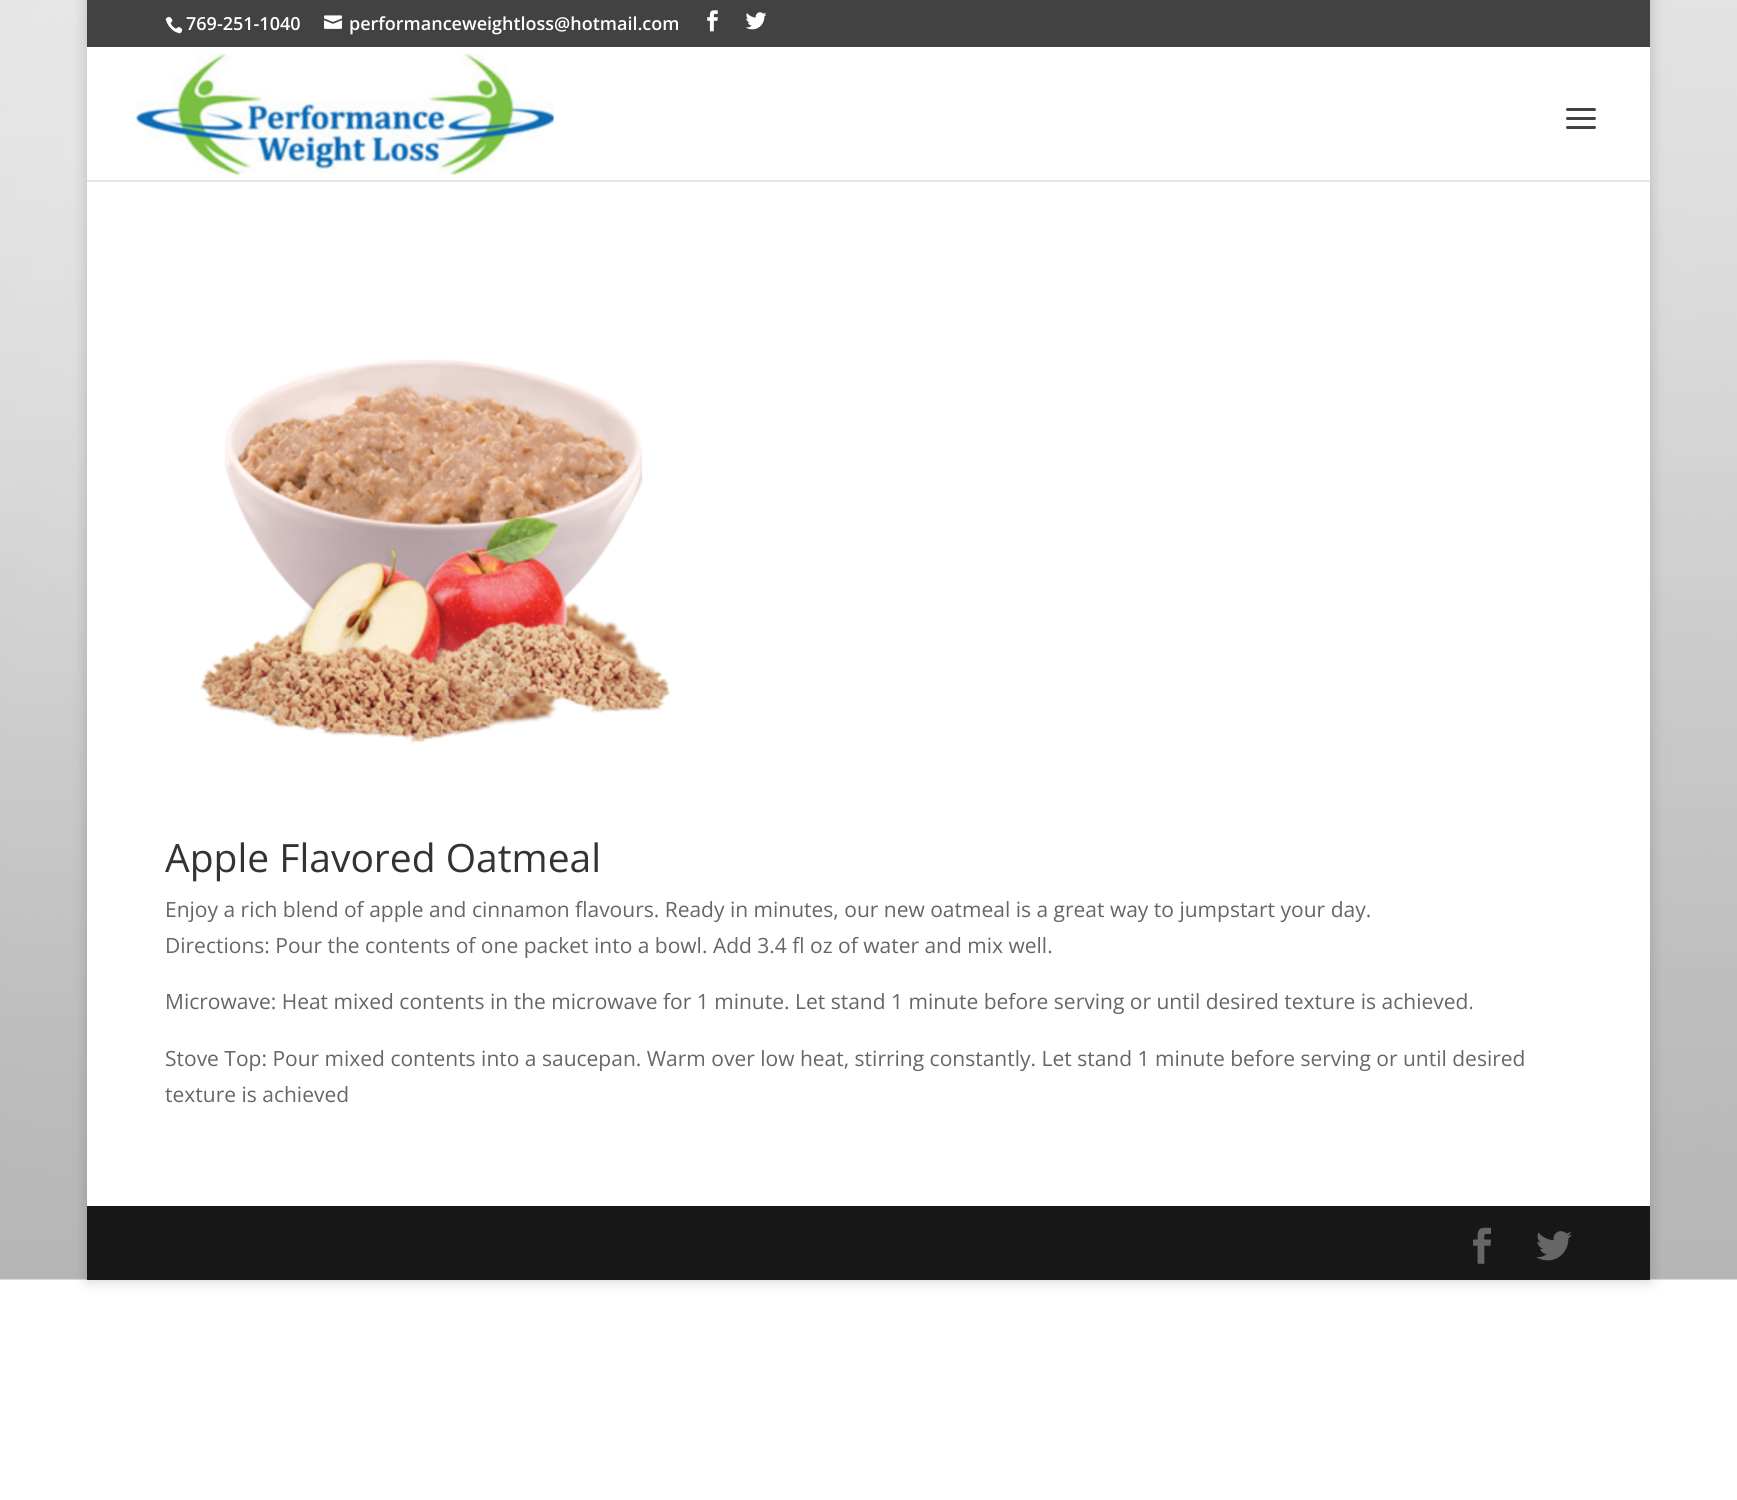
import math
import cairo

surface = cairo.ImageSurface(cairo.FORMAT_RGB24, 1737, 1500)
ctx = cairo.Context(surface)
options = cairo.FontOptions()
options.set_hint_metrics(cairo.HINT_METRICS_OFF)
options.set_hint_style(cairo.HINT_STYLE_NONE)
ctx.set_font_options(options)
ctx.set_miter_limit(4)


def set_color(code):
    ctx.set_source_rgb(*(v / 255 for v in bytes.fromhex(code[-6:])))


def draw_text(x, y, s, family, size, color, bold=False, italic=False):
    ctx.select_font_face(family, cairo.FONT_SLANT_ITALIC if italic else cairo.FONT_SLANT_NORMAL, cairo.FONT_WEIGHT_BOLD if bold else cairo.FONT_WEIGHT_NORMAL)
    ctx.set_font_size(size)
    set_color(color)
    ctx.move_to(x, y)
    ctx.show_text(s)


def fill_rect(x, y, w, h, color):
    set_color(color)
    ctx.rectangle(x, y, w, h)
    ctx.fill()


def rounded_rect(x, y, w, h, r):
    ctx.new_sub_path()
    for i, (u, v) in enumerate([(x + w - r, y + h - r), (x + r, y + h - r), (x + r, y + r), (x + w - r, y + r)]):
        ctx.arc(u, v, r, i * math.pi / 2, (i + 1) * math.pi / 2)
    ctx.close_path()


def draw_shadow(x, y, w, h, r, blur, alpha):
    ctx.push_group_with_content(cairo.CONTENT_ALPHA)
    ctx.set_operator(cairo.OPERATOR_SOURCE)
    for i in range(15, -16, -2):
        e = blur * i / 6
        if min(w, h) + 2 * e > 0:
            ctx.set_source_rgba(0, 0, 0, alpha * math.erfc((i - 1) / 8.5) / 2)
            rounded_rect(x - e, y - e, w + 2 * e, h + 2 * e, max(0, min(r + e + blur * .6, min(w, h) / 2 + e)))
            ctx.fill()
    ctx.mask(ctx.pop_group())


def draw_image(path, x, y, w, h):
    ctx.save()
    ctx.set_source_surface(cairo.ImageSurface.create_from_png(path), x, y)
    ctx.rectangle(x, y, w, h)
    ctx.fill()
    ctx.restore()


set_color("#ffffff")
ctx.paint()
draw_image("assets/img1.png", 0, 0, 1737, 1280)
set_color("#000000")
draw_shadow(87, 0, 1563, 1280, 0, 7.5, 0.2)
fill_rect(87, 0, 1563, 47, "#424242")
draw_image("assets/img2.png", 165, 16, 18, 18)
draw_text(186, 30, "769-251-1040", "Open Sans SemiBold", 18, "#ffffff")
draw_image("assets/img3.png", 324, 15, 18, 14)
draw_text(349, 30, "performanceweightloss@hotmail.com", "Open Sans SemiBold", 18, "#ffffff")
draw_image("assets/img4.png", 707, 10, 11, 22)
draw_image("assets/img5.png", 745, 12, 22, 18)
fill_rect(87, 180, 1563, 2, "#e6e6e6")
fill_rect(87, 47, 1563, 133, "#ffffff")
draw_image("assets/img6.png", 136, 53, 418, 122)
draw_image("assets/img7.png", 1566, 108, 30, 21)
fill_rect(87, 182, 1563, 1024, "#ffffff")
draw_image("assets/img8.png", 199, 359, 472, 385)
draw_text(165, 872, "Apple Flavored Oatmeal", "Open Sans", 39, "#333333")
draw_text(165, 917, "Enjoy a rich blend of apple and cinnamon flavours. Ready in minutes, our new oatmeal is a great way to jumpstart your day.", "Open Sans", 21, "#666666")
draw_text(165, 953, "Directions: Pour the contents of one packet into a bowl. Add 3.4 fl oz of water and mix well.", "Open Sans", 21, "#666666")
draw_text(165, 1009, "Microwave: Heat mixed contents in the microwave for 1 minute. Let stand 1 minute before serving or until desired texture is achieved.", "Open Sans", 21, "#666666")
draw_text(165, 1066, "Stove Top: Pour mixed contents into a saucepan. Warm over low heat, stirring constantly. Let stand 1 minute before serving or until desired", "Open Sans", 21, "#666666")
draw_text(165, 1102, "texture is achieved", "Open Sans", 21, "#666666")
fill_rect(87, 1206, 1563, 74, "#171717")
draw_image("assets/img9.png", 1473, 1227, 18, 37)
draw_image("assets/img10.png", 1536, 1231, 36, 30)
surface.write_to_png("output.png")
